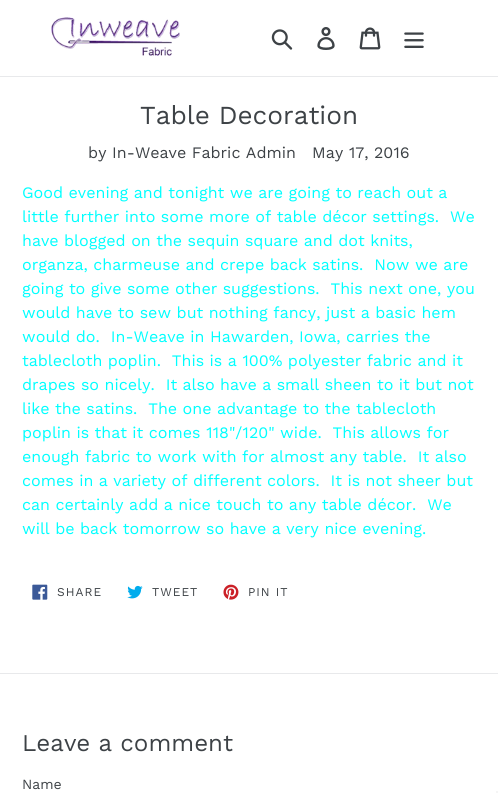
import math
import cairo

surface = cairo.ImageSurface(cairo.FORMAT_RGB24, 498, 793)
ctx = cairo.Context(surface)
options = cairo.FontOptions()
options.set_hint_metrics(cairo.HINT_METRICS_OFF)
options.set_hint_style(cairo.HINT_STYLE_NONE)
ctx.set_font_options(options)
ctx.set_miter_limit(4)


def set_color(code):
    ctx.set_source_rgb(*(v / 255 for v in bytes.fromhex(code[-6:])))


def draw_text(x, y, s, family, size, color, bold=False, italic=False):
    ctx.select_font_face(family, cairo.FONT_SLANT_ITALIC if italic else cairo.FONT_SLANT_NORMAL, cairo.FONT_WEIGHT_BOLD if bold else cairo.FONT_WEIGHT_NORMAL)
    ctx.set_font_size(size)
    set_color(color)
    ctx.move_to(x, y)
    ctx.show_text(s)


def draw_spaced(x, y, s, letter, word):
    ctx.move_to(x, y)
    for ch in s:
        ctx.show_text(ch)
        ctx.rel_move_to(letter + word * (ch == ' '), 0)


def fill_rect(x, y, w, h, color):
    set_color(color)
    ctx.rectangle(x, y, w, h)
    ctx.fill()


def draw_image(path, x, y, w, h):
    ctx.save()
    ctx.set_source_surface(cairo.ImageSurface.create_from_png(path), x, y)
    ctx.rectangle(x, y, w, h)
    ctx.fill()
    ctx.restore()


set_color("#ffffff")
ctx.paint()
fill_rect(0, 76, 498, 1, "#e8e9eb")
draw_image("assets/img1.png", 51, 17, 129, 39)
draw_image("assets/img2.png", 271, 29, 22, 21)
draw_image("assets/img3.png", 317, 27, 18, 23)
draw_image("assets/img4.png", 359, 27, 22, 23)
draw_image("assets/img5.png", 404, 32, 20, 16)
draw_text(140, 124, "Table Decoration", "Work Sans", 26, "#3d4246")
draw_text(88, 158, "by In-Weave Fabric Admin", "Work Sans", 16, "#3d4246")
draw_text(312, 158, "May 17, 2016", "Work Sans", 16, "#3d4246")
draw_text(22, 198, "Good evening and tonight we are going to reach out a", "Work Sans", 16, "#00ffff")
draw_text(22, 222, "little further into some more of table décor settings.  We", "Work Sans", 16, "#00ffff")
draw_text(22, 246, "have blogged on the sequin square and dot knits,", "Work Sans", 16, "#00ffff")
draw_text(22, 270, "organza, charmeuse and crepe back satins.  Now we are", "Work Sans", 16, "#00ffff")
draw_text(22, 294, "going to give some other suggestions.  This next one, you", "Work Sans", 16, "#00ffff")
draw_text(22, 318, "would have to sew but nothing fancy, just a basic hem", "Work Sans", 16, "#00ffff")
draw_text(22, 342, "would do.  In-Weave in Hawarden, Iowa, carries the", "Work Sans", 16, "#00ffff")
draw_text(22, 366, "tablecloth poplin.  This is a 100% polyester fabric and it", "Work Sans", 16, "#00ffff")
draw_text(22, 390, "drapes so nicely.  It also have a small sheen to it but not", "Work Sans", 16, "#00ffff")
draw_text(22, 414, "like the satins.  The one advantage to the tablecloth", "Work Sans", 16, "#00ffff")
draw_text(22, 438, "poplin is that it comes 118\"/120\" wide.  This allows for", "Work Sans", 16, "#00ffff")
draw_text(22, 462, "enough fabric to work with for almost any table.  It also", "Work Sans", 16, "#00ffff")
draw_text(22, 486, "comes in a variety of different colors.  It is not sheer but", "Work Sans", 16, "#00ffff")
draw_text(22, 510, "can certainly add a nice touch to any table décor.  We", "Work Sans", 16, "#00ffff")
draw_text(22, 534, "will be back tomorrow so have a very nice evening.", "Work Sans", 16, "#00ffff")
draw_image("assets/img6.png", 32, 584, 16, 16)
ctx.set_font_size(12)
set_color("#3d4246")
draw_spaced(57, 596, "SHARE", 1, 0)
draw_image("assets/img7.png", 127, 585, 16, 14)
draw_spaced(152, 596, "TWEET", 1, 0)
draw_image("assets/img8.png", 223, 584, 16, 16)
draw_spaced(248, 596, "PIN IT", 1, 0)
fill_rect(0, 673, 498, 1, "#e8e9eb")
draw_text(22, 751, "Leave a comment", "Work Sans", 24, "#3d4246")
draw_text(22, 789, "Name", "Work Sans", 14, "#3d4246")
fill_rect(496, 791, 2, 2, "#f5f5f5")
surface.write_to_png("output.png")
